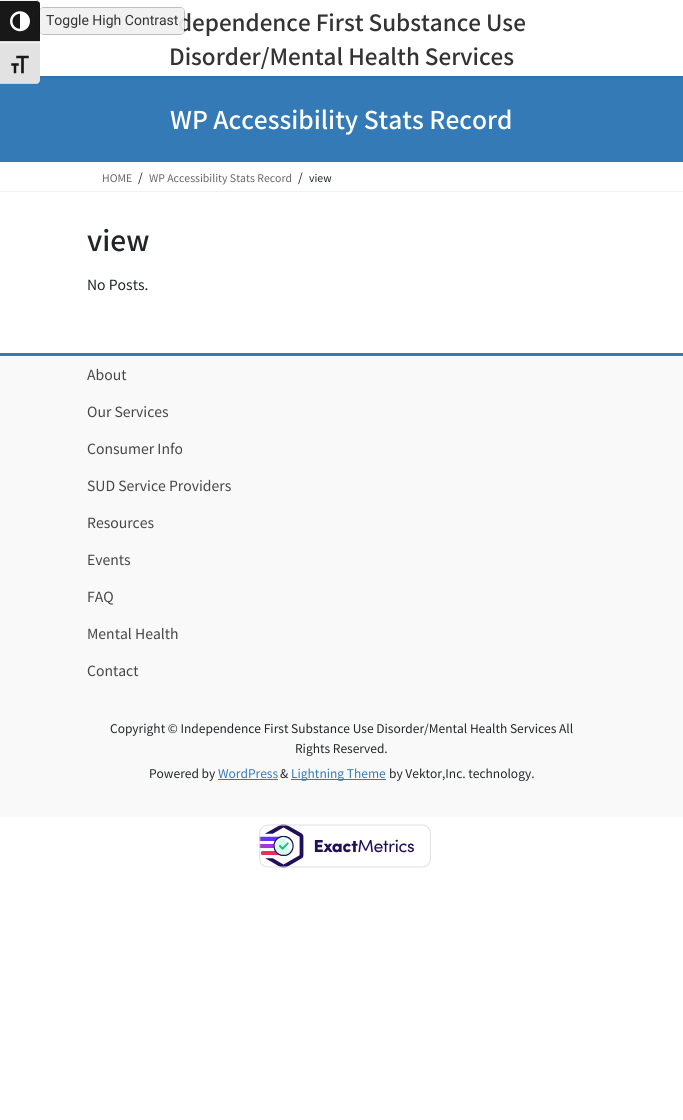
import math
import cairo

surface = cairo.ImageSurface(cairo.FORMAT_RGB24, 683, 1120)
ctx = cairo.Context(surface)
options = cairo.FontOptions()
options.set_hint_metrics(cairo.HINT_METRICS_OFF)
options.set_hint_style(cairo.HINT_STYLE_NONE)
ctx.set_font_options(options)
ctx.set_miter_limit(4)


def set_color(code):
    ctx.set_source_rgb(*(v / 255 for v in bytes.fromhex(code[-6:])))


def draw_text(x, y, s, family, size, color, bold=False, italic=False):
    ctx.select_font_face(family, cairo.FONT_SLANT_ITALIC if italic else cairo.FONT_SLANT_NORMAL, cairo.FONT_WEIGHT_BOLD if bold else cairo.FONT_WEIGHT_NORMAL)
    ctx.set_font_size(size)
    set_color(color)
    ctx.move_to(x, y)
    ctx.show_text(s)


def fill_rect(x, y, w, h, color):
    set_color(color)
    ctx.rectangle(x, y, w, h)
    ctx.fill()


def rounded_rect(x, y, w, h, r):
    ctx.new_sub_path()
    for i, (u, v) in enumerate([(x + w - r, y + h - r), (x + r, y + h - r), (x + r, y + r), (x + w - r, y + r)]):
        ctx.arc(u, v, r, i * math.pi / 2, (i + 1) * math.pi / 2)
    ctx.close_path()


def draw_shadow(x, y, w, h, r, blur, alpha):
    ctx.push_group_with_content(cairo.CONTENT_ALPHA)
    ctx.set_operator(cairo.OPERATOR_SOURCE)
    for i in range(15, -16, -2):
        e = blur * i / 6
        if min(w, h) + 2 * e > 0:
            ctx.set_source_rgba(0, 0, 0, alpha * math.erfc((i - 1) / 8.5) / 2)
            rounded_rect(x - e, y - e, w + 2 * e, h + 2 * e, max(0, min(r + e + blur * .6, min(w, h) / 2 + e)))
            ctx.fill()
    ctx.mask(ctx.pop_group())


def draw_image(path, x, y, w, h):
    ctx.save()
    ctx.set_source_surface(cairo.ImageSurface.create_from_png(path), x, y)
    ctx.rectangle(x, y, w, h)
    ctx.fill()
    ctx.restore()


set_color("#ffffff")
ctx.paint()
fill_rect(0, 76, 683, 86, "#337ab7")
ctx.save()
ctx.rectangle(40, 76, 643, 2)
ctx.clip()
set_color("#000000")
draw_shadow(0, 1, 683, 76, 0, 1.5, 0.1)
ctx.restore()
set_color("#181818")
ctx.new_path()
ctx.move_to(0, 0)
ctx.line_to(36, 0)
ctx.curve_to(38, 0, 40, 2, 40, 4)
ctx.line_to(40, 42)
ctx.line_to(0, 42)
ctx.close_path()
ctx.fill()
set_color("#f5f5f5")
ctx.new_path()
ctx.move_to(0, 0)
ctx.line_to(0, 1)
ctx.line_to(36, 1)
ctx.curve_to(38, 1, 40, 2, 40, 4)
ctx.curve_to(40, 2, 38, 0, 36, 0)
ctx.close_path()
ctx.fill()
fill_rect(0, 41, 40, 1, "#d2d2d2")
draw_image("assets/img1.png", 10, 11, 20, 21)
ctx.save()
ctx.set_fill_rule(cairo.FILL_RULE_EVEN_ODD)
ctx.new_path()
ctx.move_to(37, 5)
ctx.line_to(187, 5)
ctx.line_to(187, 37)
ctx.line_to(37, 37)
ctx.close_path()
ctx.move_to(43, 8)
ctx.line_to(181, 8)
ctx.curve_to(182.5, 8, 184, 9.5, 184, 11)
ctx.line_to(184, 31)
ctx.curve_to(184, 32.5, 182.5, 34, 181, 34)
ctx.line_to(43, 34)
ctx.curve_to(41.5, 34, 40, 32.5, 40, 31)
ctx.line_to(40, 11)
ctx.curve_to(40, 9.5, 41.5, 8, 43, 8)
ctx.close_path()
ctx.clip()
set_color("#000000")
draw_shadow(40, 8, 144, 26, 3, 0.5, 1)
ctx.restore()
draw_text(178, 31, "dependence First Substance Use", "Noto Sans JP Medium", 22.4, "#333333")
ctx.set_source_rgba(0.941, 0.941, 0.941, 0.93)
rounded_rect(40, 8, 144, 26, 3)
ctx.fill()
draw_text(46, 25, "Toggle High Contrast", "Roboto", 14, "#333333")
set_color("#e2e2e2")
ctx.new_path()
ctx.move_to(0, 42)
ctx.line_to(40, 42)
ctx.line_to(40, 80)
ctx.curve_to(40, 82, 38, 84, 36, 84)
ctx.line_to(0, 84)
ctx.close_path()
ctx.fill()
fill_rect(0, 42, 40, 1, "#f5f5f5")
set_color("#d2d2d2")
ctx.new_path()
ctx.move_to(0, 83)
ctx.line_to(0, 84)
ctx.line_to(36, 84)
ctx.curve_to(38, 84, 40, 82, 40, 80)
ctx.curve_to(40, 82, 38, 83, 36, 83)
ctx.close_path()
ctx.fill()
draw_image("assets/img2.png", 11, 55, 18, 19)
draw_text(169, 65, "Disorder/Mental Health Services", "Noto Sans JP Medium", 22.4, "#333333")
draw_text(170, 129, "WP Accessibility Stats Record", "Noto Sans JP Medium", 24.5, "#ffffff")
fill_rect(0, 191, 683, 1, "#f2f2f2")
draw_text(102, 182, "HOME", "Noto Sans JP", 10.5, "#666666")
draw_text(138, 182, "/", "Noto Sans JP", 12, "#212529")
draw_text(149, 182, "WP Accessibility Stats Record", "Noto Sans JP", 10.5, "#666666")
draw_text(298, 182, "/", "Noto Sans JP", 12, "#212529")
draw_text(309, 182, "view", "Noto Sans JP", 10.5, "#212529")
draw_text(87, 251, "view", "Noto Sans JP Medium", 28, "#212529")
draw_text(87, 290, "No Posts.", "Noto Sans JP", 14, "#212529")
fill_rect(0, 356, 683, 461, "#f9f9f9")
fill_rect(0, 353, 683, 3, "#337ab7")
draw_text(87, 380, "About", "Noto Sans JP", 14, "#464646")
draw_text(87, 417, "Our Services", "Noto Sans JP", 14, "#464646")
draw_text(87, 454, "Consumer Info", "Noto Sans JP", 14, "#464646")
draw_text(87, 491, "SUD Service Providers", "Noto Sans JP", 14, "#464646")
draw_text(87, 528, "Resources", "Noto Sans JP", 14, "#464646")
draw_text(87, 565, "Events", "Noto Sans JP", 14, "#464646")
draw_text(87, 602, "FAQ", "Noto Sans JP", 14, "#464646")
draw_text(87, 639, "Mental Health", "Noto Sans JP", 14, "#464646")
draw_text(87, 676, "Contact", "Noto Sans JP", 14, "#464646")
draw_text(110, 733, "Copyright © Independence First Substance Use Disorder/Mental Health Services All", "Noto Sans JP", 12, "#212529")
draw_text(295, 753, "Rights Reserved.", "Noto Sans JP", 12, "#212529")
draw_text(149, 778, "Powered by", "Noto Sans JP", 12, "#212529")
draw_text(218, 778, "WordPress", "Noto Sans JP", 12, "#337ab7")
fill_rect(218, 779, 60, 1, "#337ab7")
draw_text(280, 778, "&", "Noto Sans JP", 12, "#212529")
fill_rect(291, 779, 95, 1, "#337ab7")
draw_text(291, 778, "Lightning Theme", "Noto Sans JP", 12, "#337ab7")
draw_text(389, 778, "by Vektor,Inc. technology.", "Noto Sans JP", 12, "#212529")
draw_image("assets/img3.png", 259, 824, 172, 44)
surface.write_to_png("output.png")
